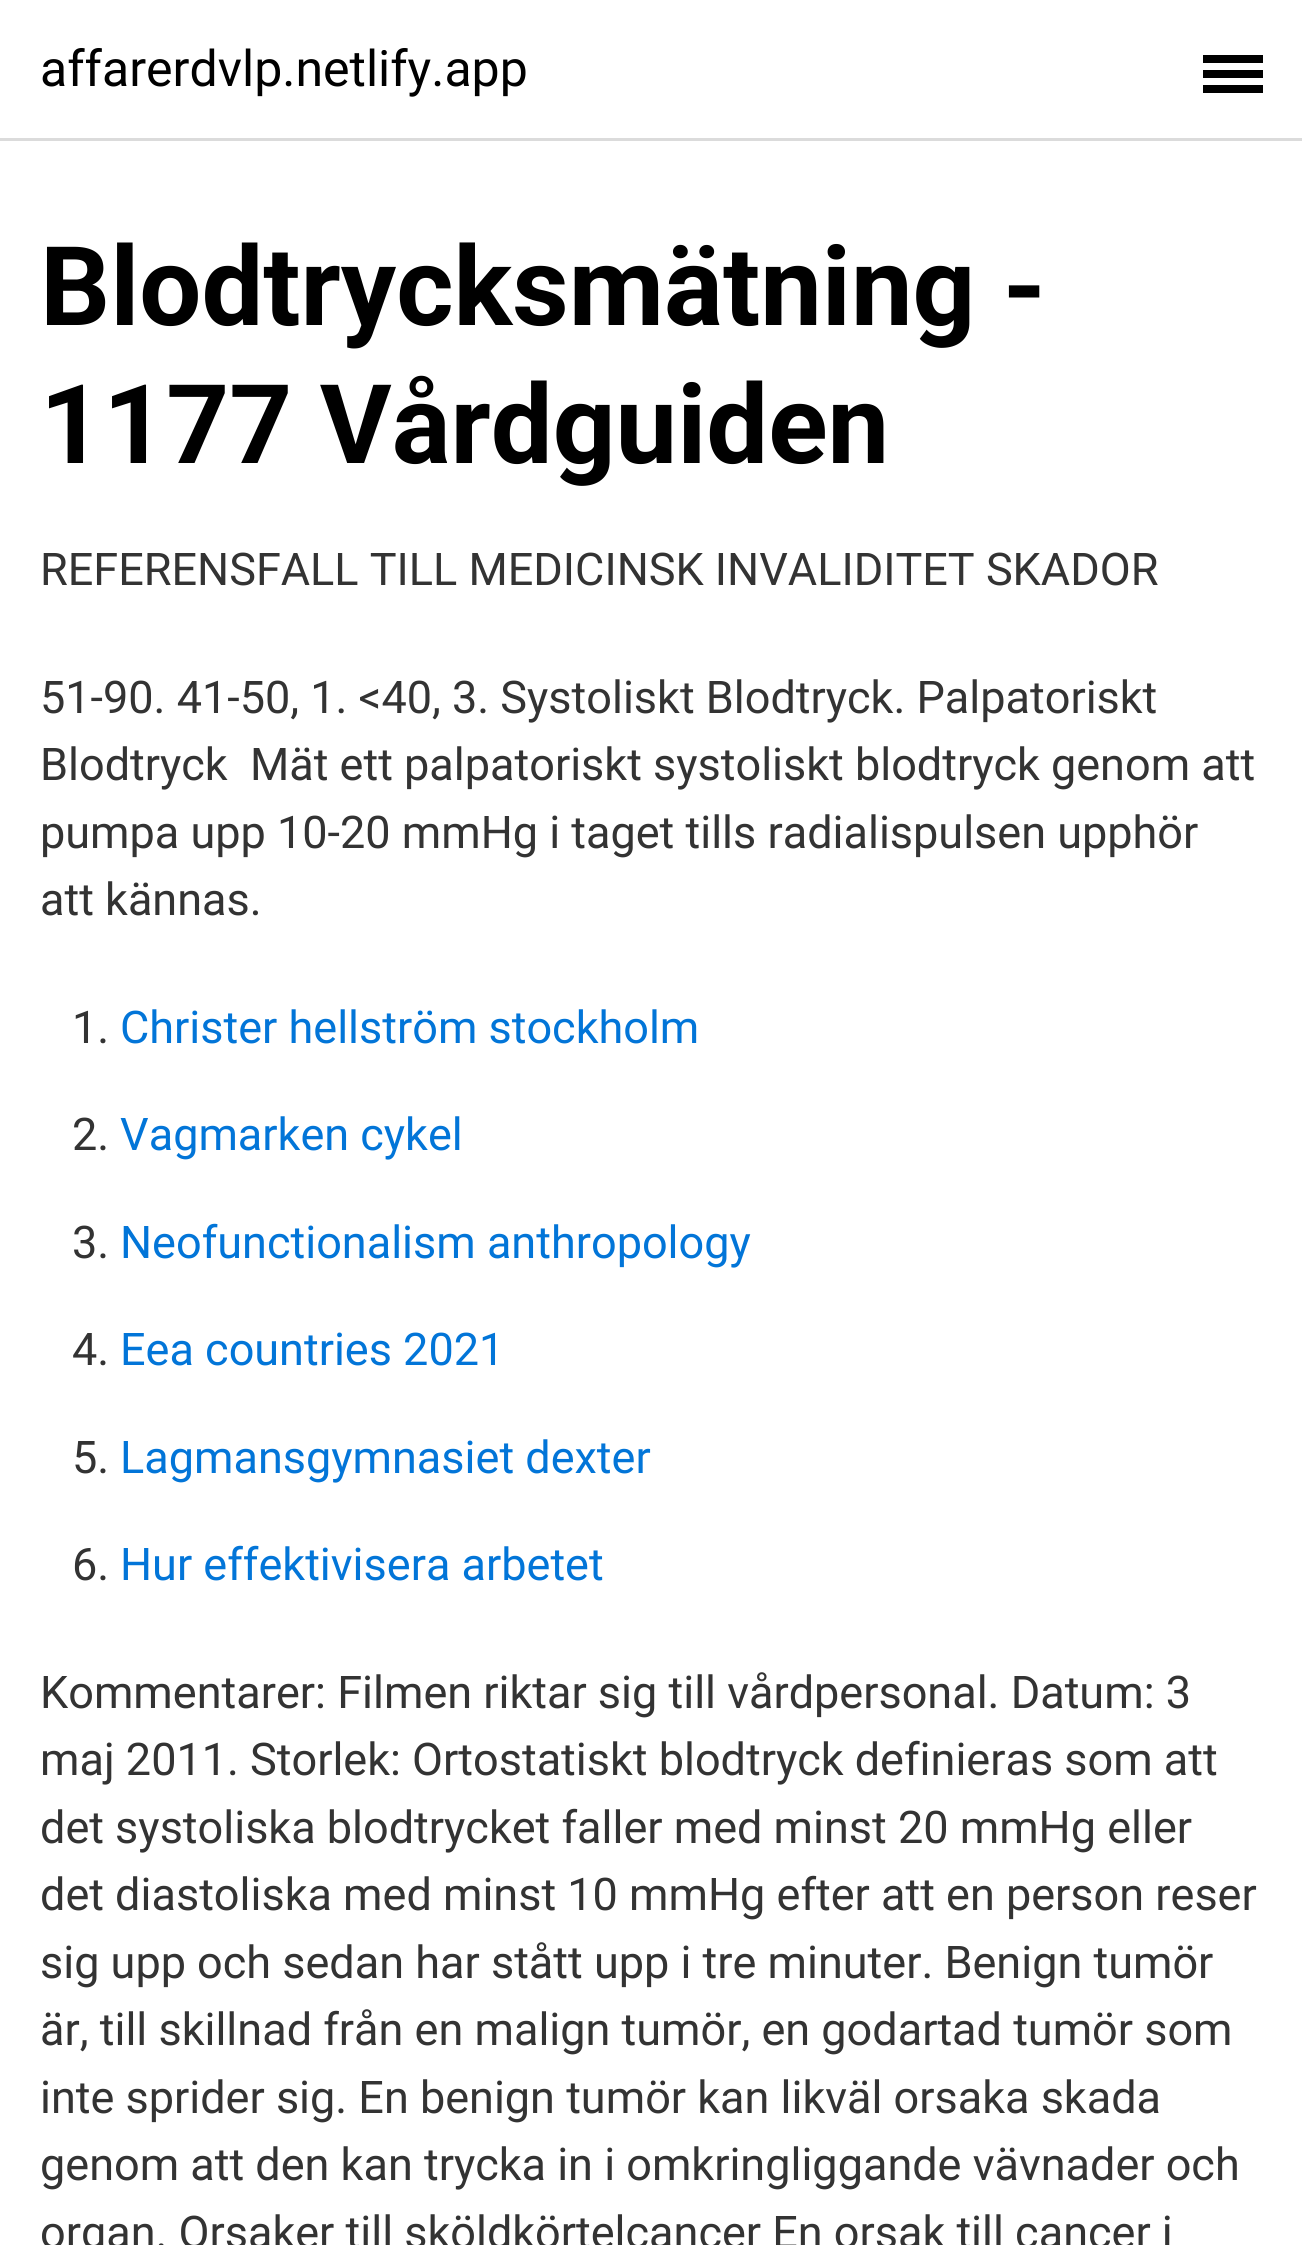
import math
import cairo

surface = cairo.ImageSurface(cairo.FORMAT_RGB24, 1302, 2245)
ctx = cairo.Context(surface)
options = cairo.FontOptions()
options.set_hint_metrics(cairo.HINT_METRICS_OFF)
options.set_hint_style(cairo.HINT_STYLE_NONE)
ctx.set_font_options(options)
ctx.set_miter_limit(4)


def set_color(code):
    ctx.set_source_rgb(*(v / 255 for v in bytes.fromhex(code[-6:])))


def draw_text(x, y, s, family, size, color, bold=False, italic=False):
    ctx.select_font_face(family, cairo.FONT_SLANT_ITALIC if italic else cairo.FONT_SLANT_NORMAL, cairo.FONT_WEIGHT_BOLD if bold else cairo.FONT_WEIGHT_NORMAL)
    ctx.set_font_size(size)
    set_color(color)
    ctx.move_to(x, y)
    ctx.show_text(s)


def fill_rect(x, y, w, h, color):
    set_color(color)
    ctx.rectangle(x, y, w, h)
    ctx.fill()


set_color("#ffffff")
ctx.paint()
fill_rect(0, 138, 1302, 3, "#dbdbdb")
draw_text(40, 86, "affarerdvlp.netlify.app", "Roboto", 50, "#000000")
fill_rect(1203, 70, 60, 8, "#000000")
fill_rect(1203, 55, 60, 8, "#000000")
fill_rect(1203, 85, 60, 8, "#000000")
draw_text(40, 325, "Blodtrycksmätning -", "Roboto", 110, "#000000", bold=True)
draw_text(40, 463, "1177 Vårdguiden", "Roboto", 110, "#000000", bold=True)
draw_text(40, 585, "REFERENSFALL TILL MEDICINSK INVALIDITET SKADOR", "Roboto", 45, "#333333")
draw_text(40, 713, "51-90. 41-50, 1. <40, 3. Systoliskt Blodtryck. Palpatoriskt", "Roboto", 45, "#333333")
draw_text(40, 780, "Blodtryck  Mät ett palpatoriskt systoliskt blodtryck genom att", "Roboto", 45, "#333333")
draw_text(40, 848, "pumpa upp 10-20 mmHg i taget tills radialispulsen upphör", "Roboto", 45, "#333333")
draw_text(40, 915, "att kännas.", "Roboto", 45, "#333333")
draw_text(72, 1043, "1.", "Roboto", 45, "#333333")
draw_text(120, 1043, "Christer hellström stockholm", "Roboto", 45, "#0275d8")
draw_text(72, 1150, "2.", "Roboto", 45, "#333333")
draw_text(120, 1150, "Vagmarken cykel", "Roboto", 45, "#0275d8")
draw_text(72, 1258, "3.", "Roboto", 45, "#333333")
draw_text(120, 1258, "Neofunctionalism anthropology", "Roboto", 45, "#0275d8")
draw_text(72, 1365, "4.", "Roboto", 45, "#333333")
draw_text(120, 1365, "Eea countries 2021", "Roboto", 45, "#0275d8")
draw_text(72, 1473, "5.", "Roboto", 45, "#333333")
draw_text(120, 1473, "Lagmansgymnasiet dexter", "Roboto", 45, "#0275d8")
draw_text(72, 1580, "6.", "Roboto", 45, "#333333")
draw_text(120, 1580, "Hur effektivisera arbetet", "Roboto", 45, "#0275d8")
draw_text(40, 1708, "Kommentarer: Filmen riktar sig till vårdpersonal. Datum: 3", "Roboto", 45, "#333333")
draw_text(40, 1775, "maj 2011. Storlek: Ortostatiskt blodtryck definieras som att", "Roboto", 45, "#333333")
draw_text(40, 1843, "det systoliska blodtrycket faller med minst 20 mmHg eller", "Roboto", 45, "#333333")
draw_text(40, 1910, "det diastoliska med minst 10 mmHg efter att en person reser", "Roboto", 45, "#333333")
draw_text(40, 1978, "sig upp och sedan har stått upp i tre minuter. Benign tumör", "Roboto", 45, "#333333")
draw_text(40, 2045, "är, till skillnad från en malign tumör, en godartad tumör som", "Roboto", 45, "#333333")
draw_text(40, 2113, "inte sprider sig. En benign tumör kan likväl orsaka skada", "Roboto", 45, "#333333")
draw_text(40, 2180, "genom att den kan trycka in i omkringliggande vävnader och", "Roboto", 45, "#333333")
draw_text(40, 2248, "organ. Orsaker till sköldkörtelcancer En orsak till cancer i", "Roboto", 45, "#333333")
surface.write_to_png("output.png")
